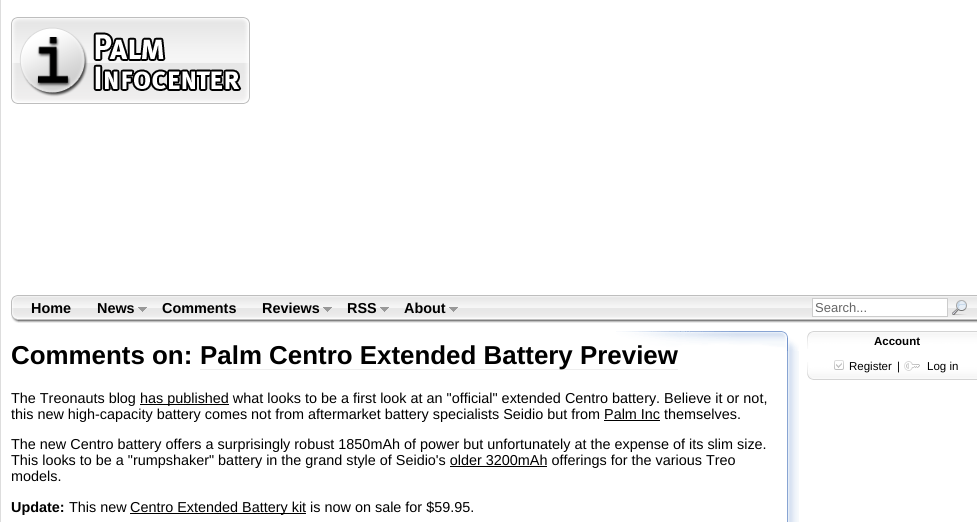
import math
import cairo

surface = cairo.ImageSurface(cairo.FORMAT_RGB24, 977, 522)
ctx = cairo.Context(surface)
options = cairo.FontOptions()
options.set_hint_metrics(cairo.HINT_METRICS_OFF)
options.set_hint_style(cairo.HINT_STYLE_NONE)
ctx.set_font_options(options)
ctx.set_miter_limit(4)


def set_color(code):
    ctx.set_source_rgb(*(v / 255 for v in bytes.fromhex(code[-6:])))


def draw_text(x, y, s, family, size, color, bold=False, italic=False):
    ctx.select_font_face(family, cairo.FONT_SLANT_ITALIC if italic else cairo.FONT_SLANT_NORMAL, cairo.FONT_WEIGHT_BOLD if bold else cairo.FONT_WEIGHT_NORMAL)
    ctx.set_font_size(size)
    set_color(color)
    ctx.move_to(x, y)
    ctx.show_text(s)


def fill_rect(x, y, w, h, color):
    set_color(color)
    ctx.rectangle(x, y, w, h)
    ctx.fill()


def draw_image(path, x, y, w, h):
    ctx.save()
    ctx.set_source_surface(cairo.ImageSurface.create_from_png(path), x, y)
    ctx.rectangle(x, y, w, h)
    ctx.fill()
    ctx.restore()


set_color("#ffffff")
ctx.paint()
fill_rect(0, 0, 1, 522, "#dddddd")
draw_image("assets/img1.png", 11, 17, 239, 87)
draw_image("assets/img2.png", 18, 295, 959, 28)
draw_image("assets/img3.png", 11, 295, 7, 28)
draw_text(31, 313, "Home", "Liberation Sans", 14.4, "#000000", bold=True)
draw_text(97, 313, "News", "Liberation Sans", 14.4, "#000000", bold=True)
draw_image("assets/img4.png", 138, 307, 9, 5)
draw_text(162, 313, "Comments", "Liberation Sans", 14.4, "#000000", bold=True)
draw_text(262, 313, "Reviews", "Liberation Sans", 14.4, "#000000", bold=True)
draw_image("assets/img4.png", 323, 307, 9, 5)
draw_text(347, 313, "RSS", "Liberation Sans", 14.4, "#000000", bold=True)
draw_image("assets/img4.png", 380, 307, 9, 5)
draw_text(404, 313, "About", "Liberation Sans", 14.4, "#000000", bold=True)
draw_image("assets/img4.png", 449, 307, 9, 5)
set_color("#ffffff")
ctx.rectangle(812.5, 298.5, 135, 18)
ctx.fill_preserve()
set_color("#cccccc")
ctx.set_line_width(1)
ctx.stroke()
draw_text(815, 312, "Search...", "Liberation Sans", 13, "#666666")
draw_image("assets/img5.png", 952, 300, 15, 15)
draw_image("assets/img6.png", 787, 351, 12, 171)
draw_image("assets/img7.png", 616, 331, 183, 20)
draw_text(11, 364, "Comments on:", "Liberation Sans", 25.9, "#000000", bold=True)
fill_rect(200, 369, 478, 1, "#eeeeee")
draw_text(200, 364, "Palm Centro Extended Battery Preview", "Liberation Sans", 25.9, "#000000", bold=True)
draw_text(11, 403, "The Treonauts blog", "Liberation Sans", 14.4, "#000000")
fill_rect(140, 404, 89, 1, "#000000")
draw_text(140, 403, "has published what looks to be a first look at an \"official\" extended Centro battery. Believe it or not,", "Liberation Sans", 14.4, "#000000")
draw_text(11, 419, "this new high-capacity battery comes not from aftermarket battery specialists Seidio but from Palm Inc themselves.", "Liberation Sans", 14.4, "#000000")
fill_rect(604, 420, 56, 1, "#000000")
draw_text(11, 449, "The new Centro battery offers a surprisingly robust 1850mAh of power but unfortunately at the expense of its slim size.", "Liberation Sans", 14.4, "#000000")
draw_text(11, 465, "This looks to be a \"rumpshaker\" battery in the grand style of Seidio's older 3200mAh offerings for the various Treo", "Liberation Sans", 14.4, "#000000")
fill_rect(450, 466, 97, 1, "#000000")
draw_text(11, 481, "models.", "Liberation Sans", 14.4, "#000000")
draw_text(11, 512, "Update:", "Liberation Sans", 14.4, "#000000", bold=True)
draw_text(69, 512, "This new", "Liberation Sans", 14.4, "#000000")
fill_rect(130, 513, 176, 1, "#000000")
draw_text(130, 512, "Centro Extended Battery kit is now on sale for $59.95.", "Liberation Sans", 14.4, "#000000")
draw_image("assets/img8.png", 807, 362, 170, 18)
draw_image("assets/img9.png", 807, 331, 170, 18)
draw_text(874, 345, "Account", "Liberation Sans", 11.5, "#000000", bold=True)
draw_image("assets/img10.png", 834, 360, 10, 10)
draw_text(849, 370, "Register", "Liberation Sans", 11.5, "#000000")
draw_text(897, 370, "|", "Liberation Sans", 11.5, "#000000")
draw_image("assets/img11.png", 904, 361, 16, 10)
draw_text(927, 370, "Log in", "Liberation Sans", 11.5, "#000000")
surface.write_to_png("output.png")
